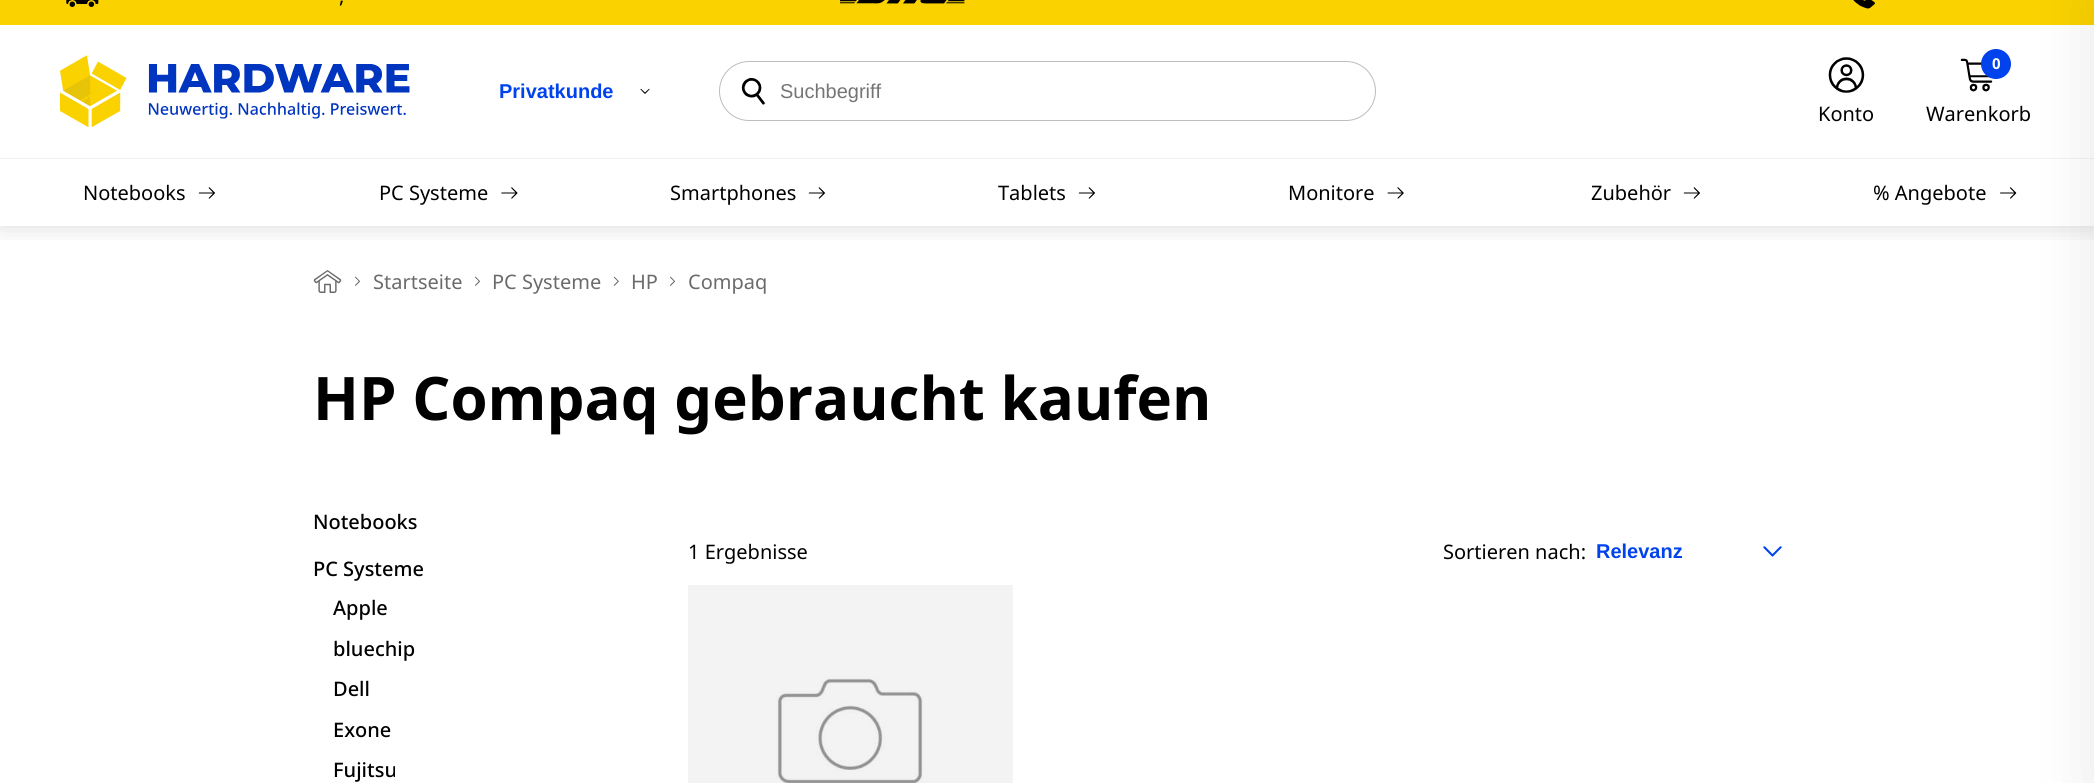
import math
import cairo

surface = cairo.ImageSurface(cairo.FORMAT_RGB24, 2094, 783)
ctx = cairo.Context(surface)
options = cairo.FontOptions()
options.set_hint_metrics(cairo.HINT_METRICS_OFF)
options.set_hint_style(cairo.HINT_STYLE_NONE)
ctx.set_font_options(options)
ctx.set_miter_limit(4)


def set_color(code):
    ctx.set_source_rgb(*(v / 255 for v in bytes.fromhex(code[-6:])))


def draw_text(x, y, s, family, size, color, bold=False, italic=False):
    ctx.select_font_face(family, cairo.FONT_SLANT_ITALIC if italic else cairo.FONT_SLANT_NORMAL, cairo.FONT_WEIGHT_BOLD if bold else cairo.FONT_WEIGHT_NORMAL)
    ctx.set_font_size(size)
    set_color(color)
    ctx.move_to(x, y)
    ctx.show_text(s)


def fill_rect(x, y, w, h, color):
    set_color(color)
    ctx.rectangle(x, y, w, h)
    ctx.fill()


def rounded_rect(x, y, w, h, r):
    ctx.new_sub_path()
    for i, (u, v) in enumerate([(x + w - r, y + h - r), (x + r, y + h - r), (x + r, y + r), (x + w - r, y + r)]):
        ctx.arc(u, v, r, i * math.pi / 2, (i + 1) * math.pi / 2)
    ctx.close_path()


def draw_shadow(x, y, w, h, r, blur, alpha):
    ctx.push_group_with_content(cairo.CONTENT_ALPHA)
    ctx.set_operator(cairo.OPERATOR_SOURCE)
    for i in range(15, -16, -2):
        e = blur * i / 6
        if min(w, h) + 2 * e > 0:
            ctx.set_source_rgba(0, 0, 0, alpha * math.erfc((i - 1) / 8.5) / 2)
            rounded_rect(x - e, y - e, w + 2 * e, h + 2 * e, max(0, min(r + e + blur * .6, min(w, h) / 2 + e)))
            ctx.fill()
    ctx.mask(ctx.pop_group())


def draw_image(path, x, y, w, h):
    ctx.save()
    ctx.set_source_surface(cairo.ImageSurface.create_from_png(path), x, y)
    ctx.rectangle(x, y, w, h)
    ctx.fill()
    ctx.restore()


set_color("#ffffff")
ctx.paint()
ctx.save()
ctx.rectangle(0, 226, 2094, 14)
ctx.clip()
set_color("#000000")
draw_shadow(0, -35, 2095, 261, 0, 12.5, 0.15)
ctx.restore()
fill_rect(0, 0, 2094, 25, "#fad200")
draw_image("assets/img1.png", 66, 0, 33, 7)
draw_text(339, 3, ",", "Noto Sans", 20, "#000000")
draw_image("assets/img2.png", 840, 0, 125, 4)
draw_image("assets/img3.png", 1853, 0, 22, 9)
fill_rect(0, 158, 2094, 1, "#f2f2f2")
draw_image("assets/img4.png", 60, 55, 350, 72)
draw_text(499, 98, "Privatkunde", "Liberation Sans", 20, "#0043ed", bold=True)
draw_image("assets/img5.png", 640, 88, 10, 6)
rounded_rect(719.5, 61.5, 656, 59, 29.5)
set_color("#bdbdbd")
ctx.set_line_width(1)
ctx.stroke()
draw_image("assets/img6.png", 741, 78, 24, 27)
draw_text(780, 98, "Suchbegriff", "Liberation Sans", 20, "#757575")
draw_image("assets/img7.png", 1828, 57, 37, 36)
draw_text(1818, 121, "Konto", "Noto Sans", 20, "#000000")
draw_image("assets/img8.png", 1960, 58, 33, 34)
set_color("#0043ed")
ctx.arc(1996, 64, 15, 0, 2 * math.pi)
ctx.fill()
draw_text(1992, 69, "0", "Noto Sans", 15, "#ffffff", bold=True)
draw_text(1926, 121, "Warenkorb", "Noto Sans", 20, "#000000")
draw_text(83, 200, "Notebooks", "Noto Sans", 20, "#000000")
draw_image("assets/img9.png", 198, 187, 17, 12)
draw_text(379, 200, "PC Systeme", "Noto Sans", 20, "#000000")
draw_image("assets/img10.png", 501, 187, 17, 12)
draw_text(670, 200, "Smartphones", "Noto Sans", 20, "#000000")
draw_image("assets/img9.png", 808, 187, 17, 12)
draw_text(998, 200, "Tablets", "Noto Sans", 20, "#000000")
draw_image("assets/img9.png", 1078, 187, 17, 12)
draw_text(1288, 200, "Monitore", "Noto Sans", 20, "#000000")
draw_image("assets/img11.png", 1387, 187, 17, 12)
draw_text(1591, 200, "Zubehör", "Noto Sans", 20, "#000000")
draw_image("assets/img9.png", 1683, 187, 17, 12)
draw_text(1873, 200, "% Angebote", "Noto Sans", 20, "#000000")
draw_image("assets/img12.png", 2000, 187, 17, 12)
set_color("#000000")
draw_shadow(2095, 0, 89, 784, 0, 30, 0.1)
draw_image("assets/img13.png", 313, 270, 29, 23)
draw_image("assets/img14.png", 355, 276, 5, 10)
draw_text(373, 289, "Startseite", "Noto Sans", 20, "#6c6a6a")
draw_image("assets/img14.png", 475, 276, 5, 10)
draw_text(492, 289, "PC Systeme", "Noto Sans", 20, "#6c6a6a")
draw_image("assets/img15.png", 613, 276, 6, 10)
draw_text(631, 289, "HP", "Noto Sans", 20, "#6c6a6a")
draw_image("assets/img14.png", 670, 276, 5, 10)
draw_text(688, 289, "Compaq", "Noto Sans", 20, "#6c6a6a")
draw_text(313, 420, "HP Compaq gebraucht kaufen", "Noto Sans", 60, "#000000", bold=True)
draw_text(313, 529, "Notebooks", "Noto Sans Medium", 20, "#000000")
draw_text(313, 576, "PC Systeme", "Noto Sans Medium", 20, "#000000")
draw_text(333, 615, "Apple", "Noto Sans Medium", 20, "#000000")
draw_text(333, 656, "bluechip", "Noto Sans Medium", 20, "#000000")
draw_text(333, 696, "Dell", "Noto Sans Medium", 20, "#000000")
draw_text(333, 737, "Exone", "Noto Sans Medium", 20, "#000000")
draw_text(333, 777, "Fujitsu", "Noto Sans Medium", 20, "#000000")
draw_text(688, 559, "1 Ergebnisse", "Noto Sans", 20, "#000000")
draw_text(1443, 559, "Sortieren nach:", "Noto Sans", 20, "#000000")
draw_text(1596, 558, "Relevanz", "Liberation Sans", 20, "#0043ed", bold=True)
draw_image("assets/img16.png", 1763, 546, 19, 11)
draw_image("assets/img17.png", 776, 678, 148, 105)
ctx.set_source_rgba(0, 0, 0, 0.05)
ctx.rectangle(688, 585, 325, 198)
ctx.fill()
surface.write_to_png("output.png")
